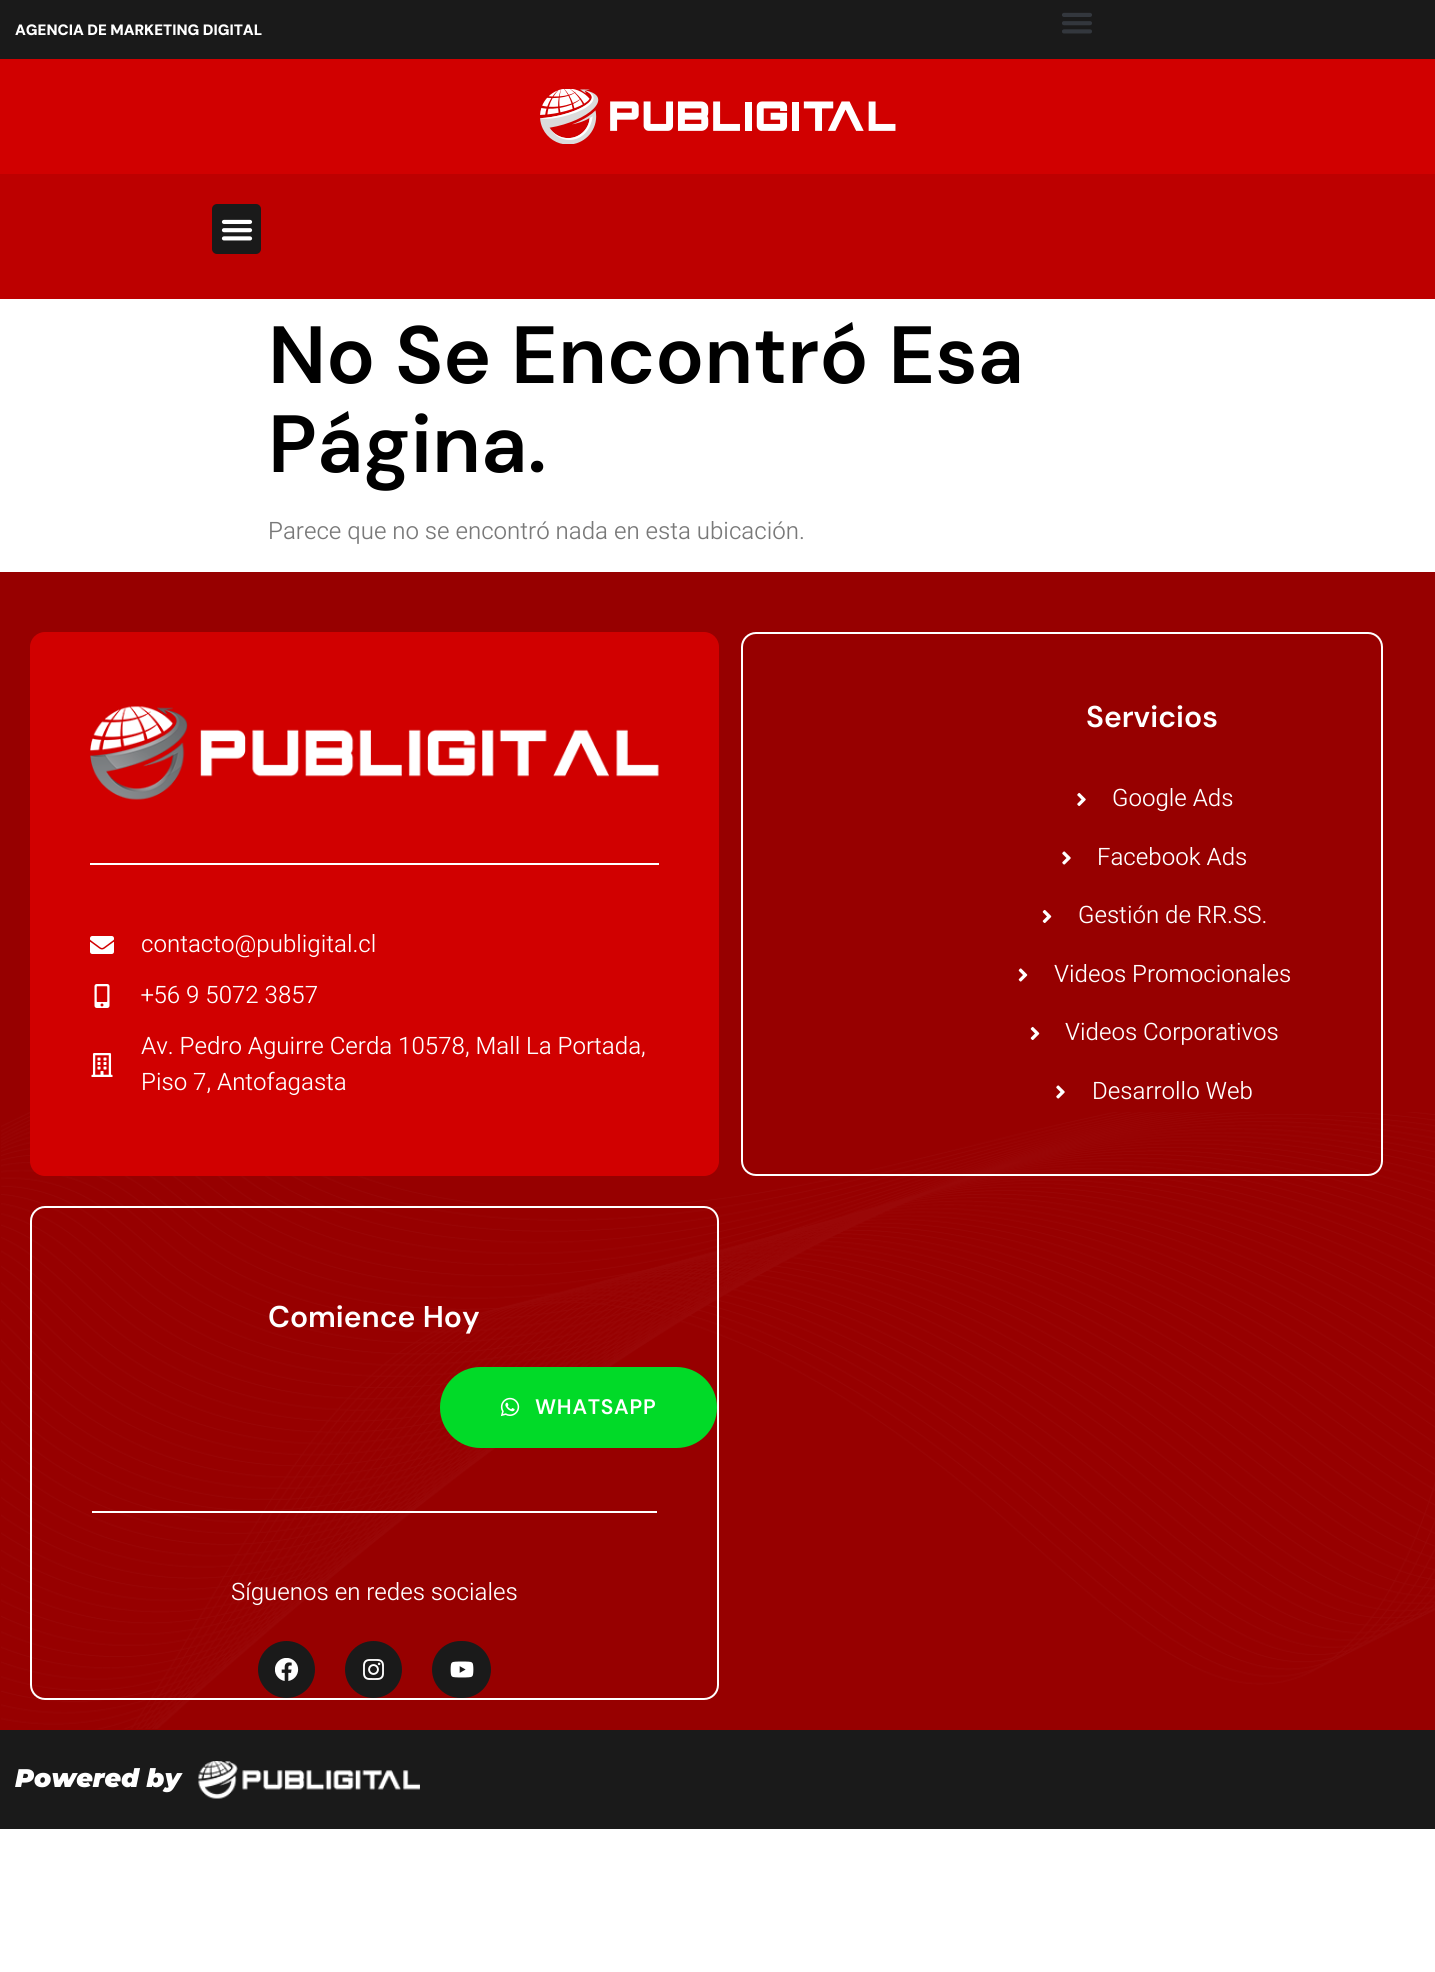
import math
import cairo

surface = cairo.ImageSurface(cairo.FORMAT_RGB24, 1435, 1972)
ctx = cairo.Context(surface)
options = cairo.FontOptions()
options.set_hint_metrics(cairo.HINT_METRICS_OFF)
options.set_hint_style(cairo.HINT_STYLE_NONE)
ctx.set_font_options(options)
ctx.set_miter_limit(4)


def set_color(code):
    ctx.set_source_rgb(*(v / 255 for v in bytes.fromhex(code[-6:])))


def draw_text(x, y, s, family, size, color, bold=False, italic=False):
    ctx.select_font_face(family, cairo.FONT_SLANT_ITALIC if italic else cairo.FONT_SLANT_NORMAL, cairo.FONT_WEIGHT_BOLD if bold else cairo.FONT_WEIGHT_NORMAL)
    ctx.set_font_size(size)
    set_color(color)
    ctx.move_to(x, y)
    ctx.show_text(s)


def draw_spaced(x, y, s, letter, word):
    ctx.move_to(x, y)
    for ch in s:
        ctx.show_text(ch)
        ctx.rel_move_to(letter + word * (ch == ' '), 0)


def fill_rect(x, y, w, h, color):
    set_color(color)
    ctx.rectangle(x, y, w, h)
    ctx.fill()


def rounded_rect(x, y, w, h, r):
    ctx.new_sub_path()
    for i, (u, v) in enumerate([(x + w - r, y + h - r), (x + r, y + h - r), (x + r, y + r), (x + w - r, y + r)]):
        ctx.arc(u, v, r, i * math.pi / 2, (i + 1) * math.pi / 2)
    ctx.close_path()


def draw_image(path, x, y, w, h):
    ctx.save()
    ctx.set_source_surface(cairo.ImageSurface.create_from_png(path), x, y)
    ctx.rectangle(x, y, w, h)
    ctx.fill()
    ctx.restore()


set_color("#ffffff")
ctx.paint()
fill_rect(0, 0, 1435, 59, "#1a1a1a")
draw_text(15, 35, "AGENCIA DE MARKETING DIGITAL", "DM Sans Black", 15, "#ffffff")
draw_image("assets/img1.png", 1062, 12, 30, 22)
fill_rect(0, 59, 1435, 115, "#d10000")
draw_image("assets/img2.png", 540, 89, 356, 55)
fill_rect(0, 174, 1435, 125, "#bd0000")
set_color("#1a1a1a")
rounded_rect(212, 204, 49, 50, 5)
ctx.fill()
draw_image("assets/img3.png", 221, 219, 32, 22)
draw_text(268, 383, "No Se Encontró Esa", "DM Sans SemiBold", 81, "#000000")
draw_text(268, 472, "Página.", "DM Sans SemiBold", 81, "#000000")
draw_text(268, 539, "Parece que no se encontró nada en esta ubicación.", "Heebo Light", 24, "#797979")
fill_rect(0, 572, 1435, 1158, "#970000")
draw_image("assets/img16.png", 1, 1112, 1434, 617)
set_color("#d10000")
rounded_rect(30, 632, 689, 544, 15)
ctx.fill()
draw_image("assets/img4.png", 90, 706, 569, 94)
fill_rect(90, 863, 569, 2, "#ffffff")
draw_image("assets/img5.png", 90, 936, 24, 18)
draw_text(141, 952, "contacto@publigital.cl", "Heebo Light", 24, "#ffffff")
draw_image("assets/img6.png", 94, 984, 16, 24)
draw_text(141, 1003, "+56 9 5072 3857", "Heebo Light", 24, "#ffffff")
draw_image("assets/img7.png", 91, 1053, 22, 24)
draw_text(141, 1054, "Av. Pedro Aguirre Cerda 10578, Mall La Portada,", "Heebo Light", 24, "#ffffff")
draw_text(141, 1090, "Piso 7, Antofagasta", "Heebo Light", 24, "#ffffff")
rounded_rect(742, 633, 640, 542, 14)
ctx.stroke()
draw_text(1086, 727, "Servicios", "DM Sans SemiBold", 30, "#ffffff")
draw_image("assets/img8.png", 1077, 792, 9, 14)
draw_text(1112, 806, "Google Ads", "Heebo Light", 24, "#ffffff")
draw_image("assets/img9.png", 1062, 851, 9, 14)
draw_text(1097, 865, "Facebook Ads", "Heebo Light", 24, "#ffffff")
draw_image("assets/img10.png", 1042, 909, 10, 14)
draw_text(1078, 923, "Gestión de RR.SS.", "Heebo Light", 24, "#ffffff")
draw_image("assets/img11.png", 1018, 968, 10, 14)
draw_text(1054, 982, "Videos Promocionales", "Heebo Light", 24, "#ffffff")
draw_image("assets/img10.png", 1030, 1026, 10, 14)
draw_text(1065, 1040, "Videos Corporativos", "Heebo Light", 24, "#ffffff")
draw_image("assets/img9.png", 1056, 1085, 9, 14)
draw_text(1092, 1099, "Desarrollo Web", "Heebo Light", 24, "#ffffff")
rounded_rect(31, 1207, 687, 492, 14)
ctx.stroke()
draw_text(268, 1327, "Comience Hoy", "DM Sans SemiBold", 30, "#ffffff")
set_color("#01da28")
rounded_rect(440, 1367, 277, 81, 40.5)
ctx.fill()
draw_image("assets/img12.png", 500, 1397, 20, 20)
ctx.set_font_size(21)
set_color("#ffffff")
draw_spaced(535, 1414, "WHATSAPP", 0.75, 0)
fill_rect(92, 1511, 565, 2, "#ffffff")
draw_text(231, 1600, "Síguenos en redes sociales", "Heebo Light", 24, "#ffffff")
set_color("#1a1a1a")
ctx.new_path()
ctx.arc(286.5, 1669.5, 28.5, 0, 2 * math.pi)
ctx.fill()
draw_image("assets/img13.png", 275, 1658, 24, 23)
ctx.arc(373.5, 1669.5, 28.5, 0, 2 * math.pi)
ctx.fill()
draw_image("assets/img14.png", 363, 1659, 21, 21)
rounded_rect(432, 1641, 59, 57, 28.5)
ctx.fill()
draw_image("assets/img15.png", 450, 1661, 24, 17)
fill_rect(0, 1730, 1435, 99, "#1a1a1a")
draw_text(15, 1787, "Powered by", "Montserrat Black", 25.5, "#ffffff", italic=True)
draw_image("assets/img17.png", 198, 1761, 222, 38)
surface.write_to_png("output.png")
